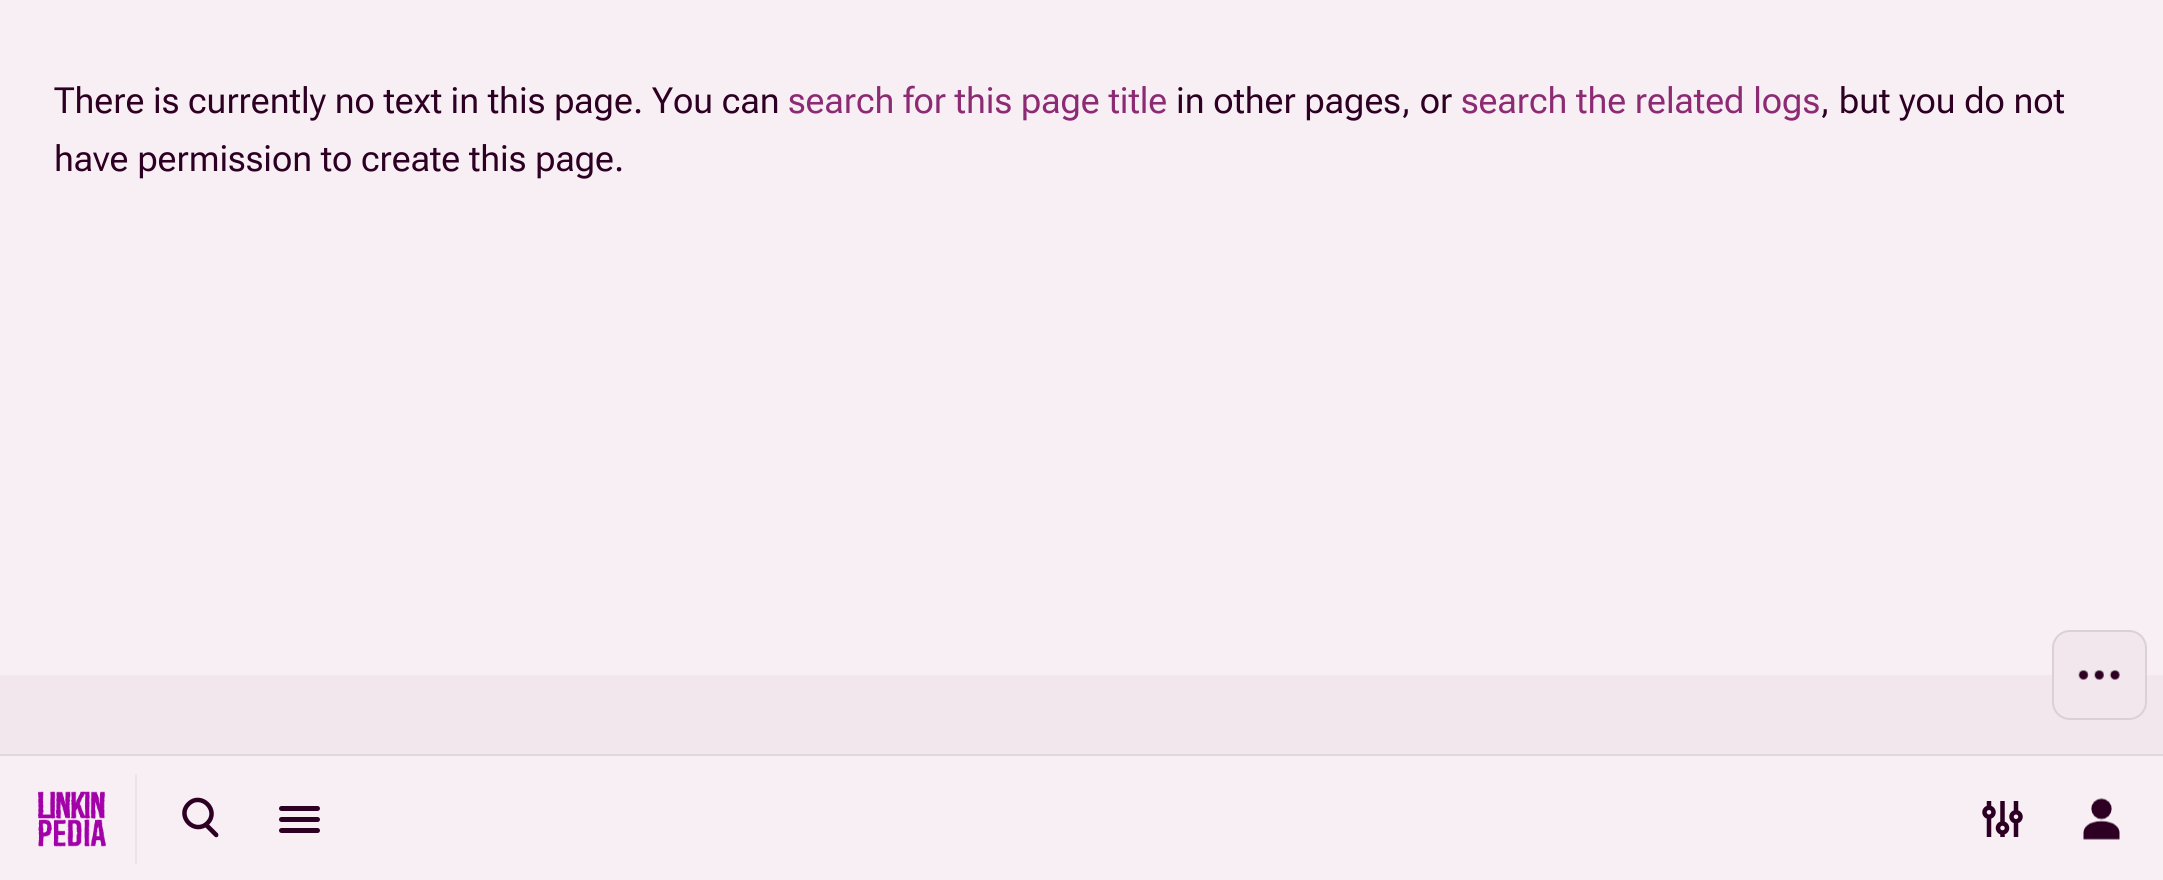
import math
import cairo

surface = cairo.ImageSurface(cairo.FORMAT_RGB24, 2163, 880)
ctx = cairo.Context(surface)
options = cairo.FontOptions()
options.set_hint_metrics(cairo.HINT_METRICS_OFF)
options.set_hint_style(cairo.HINT_STYLE_NONE)
ctx.set_font_options(options)
ctx.set_miter_limit(4)


def set_color(code):
    ctx.set_source_rgb(*(v / 255 for v in bytes.fromhex(code[-6:])))


def draw_text(x, y, s, family, size, color, bold=False, italic=False):
    ctx.select_font_face(family, cairo.FONT_SLANT_ITALIC if italic else cairo.FONT_SLANT_NORMAL, cairo.FONT_WEIGHT_BOLD if bold else cairo.FONT_WEIGHT_NORMAL)
    ctx.set_font_size(size)
    set_color(color)
    ctx.move_to(x, y)
    ctx.show_text(s)


def fill_rect(x, y, w, h, color):
    set_color(color)
    ctx.rectangle(x, y, w, h)
    ctx.fill()


def rounded_rect(x, y, w, h, r):
    ctx.new_sub_path()
    for i, (u, v) in enumerate([(x + w - r, y + h - r), (x + r, y + h - r), (x + r, y + r), (x + w - r, y + r)]):
        ctx.arc(u, v, r, i * math.pi / 2, (i + 1) * math.pi / 2)
    ctx.close_path()


def draw_image(path, x, y, w, h):
    ctx.save()
    ctx.set_source_surface(cairo.ImageSurface.create_from_png(path), x, y)
    ctx.rectangle(x, y, w, h)
    ctx.fill()
    ctx.restore()


set_color("#f7eff4")
ctx.paint()
draw_text(54, 113, "There is currently no text in this page. You can", "Roboto Flex", 36, "#2d0023")
draw_text(788, 113, "search for this page title", "Roboto Flex", 36, "#8c2a73")
draw_text(1176, 113, "in other pages, or", "Roboto Flex", 36, "#2d0023")
draw_text(1461, 113, "search the related logs", "Roboto Flex", 36, "#8c2a73")
draw_text(1820, 113, ", but you do not", "Roboto Flex", 36, "#2d0023")
draw_text(54, 171, "have permission to create this page.", "Roboto Flex", 36, "#2d0023")
fill_rect(0, 675, 2163, 79, "#f3e7ee")
rounded_rect(2052, 630, 95, 90, 18)
ctx.fill()
rounded_rect(2053, 631, 93, 88, 17)
ctx.set_source_rgba(0, 0, 0, 0.1)
ctx.stroke()
draw_image("assets/img1.png", 2078, 670, 42, 10)
fill_rect(0, 754, 2163, 2, "#ded7dc")
fill_rect(135, 774, 2, 90, "#ebe3e8")
draw_image("assets/img2.png", 38, 791, 68, 56)
set_color("#2d0023")
ctx.new_path()
ctx.move_to(205, 824)
ctx.curve_to(206, 823, 207.5, 823, 208.5, 824)
ctx.line_to(218, 833.5)
ctx.curve_to(218.5, 834.5, 218.5, 835.5, 218, 836.5)
ctx.curve_to(217, 837.5, 215.5, 837.5, 214.5, 836.5)
ctx.line_to(205, 827)
ctx.curve_to(204.5, 826, 204.5, 825, 205, 824)
ctx.close_path()
ctx.fill()
ctx.new_path()
ctx.move_to(188.5, 804)
ctx.curve_to(201, 791.5, 220, 810.5, 207.5, 823)
ctx.curve_to(195, 835.5, 176, 816.5, 188.5, 804)
ctx.close_path()
ctx.set_line_width(4.5)
ctx.stroke()
rounded_rect(279, 806, 41, 5, 2.5)
ctx.fill()
rounded_rect(279, 817, 41, 5, 2.5)
ctx.fill()
rounded_rect(279, 828, 41, 5, 2.5)
ctx.fill()
draw_image("assets/img3.png", 1982, 801, 41, 36)
draw_image("assets/img4.png", 2083, 798, 37, 42)
surface.write_to_png("output.png")
